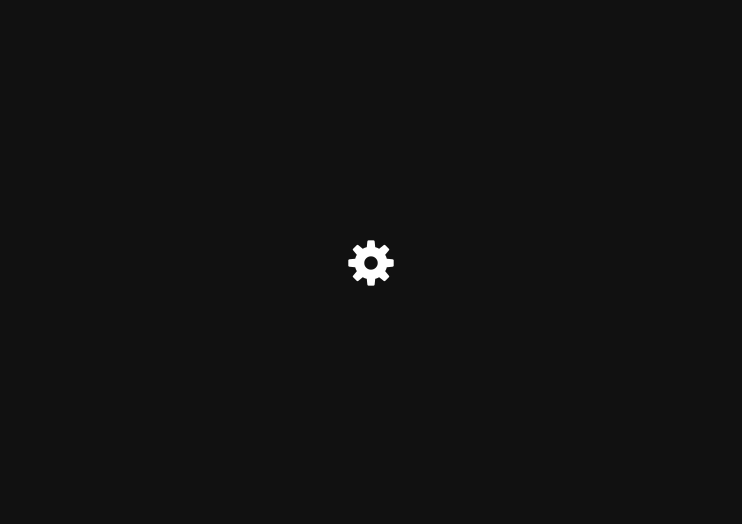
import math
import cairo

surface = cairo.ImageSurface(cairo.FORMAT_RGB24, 742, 524)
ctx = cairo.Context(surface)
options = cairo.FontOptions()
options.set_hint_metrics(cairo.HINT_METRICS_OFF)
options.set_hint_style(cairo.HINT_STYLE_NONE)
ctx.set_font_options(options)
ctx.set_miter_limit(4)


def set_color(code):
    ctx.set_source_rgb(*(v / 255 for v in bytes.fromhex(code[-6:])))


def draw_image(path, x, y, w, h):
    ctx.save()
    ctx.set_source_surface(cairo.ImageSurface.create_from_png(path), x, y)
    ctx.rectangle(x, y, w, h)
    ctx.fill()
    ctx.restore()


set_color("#111111")
ctx.paint()
draw_image("assets/img1.png", 348, 240, 46, 46)
surface.write_to_png("output.png")
